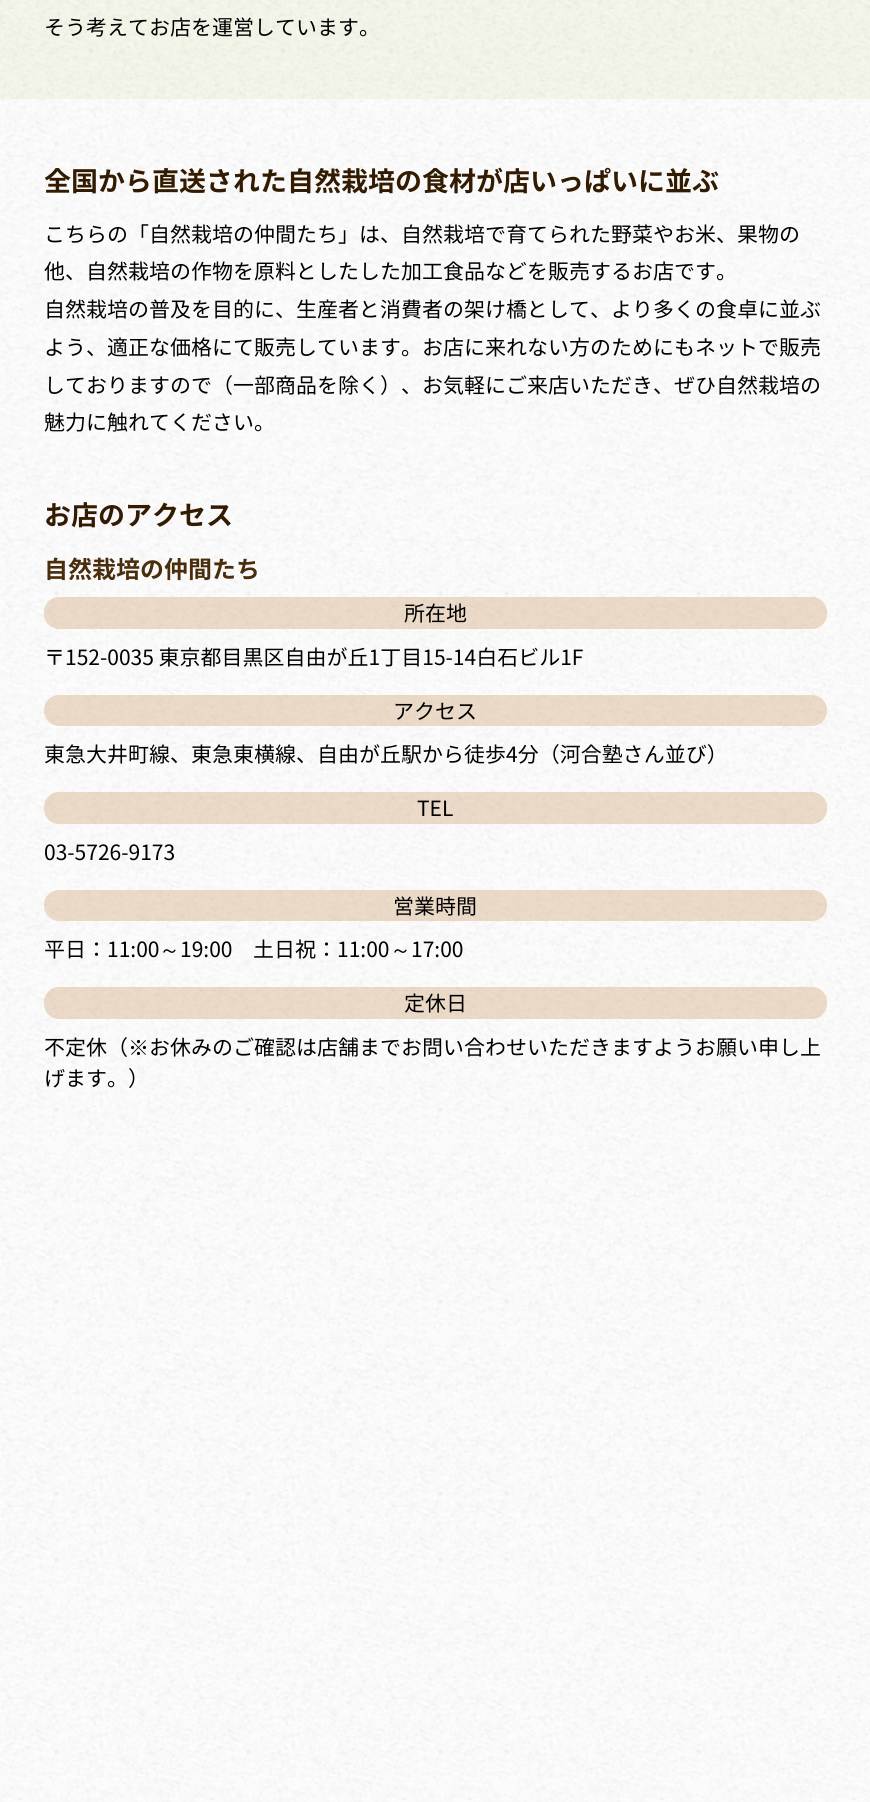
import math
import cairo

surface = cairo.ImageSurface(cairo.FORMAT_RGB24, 870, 1802)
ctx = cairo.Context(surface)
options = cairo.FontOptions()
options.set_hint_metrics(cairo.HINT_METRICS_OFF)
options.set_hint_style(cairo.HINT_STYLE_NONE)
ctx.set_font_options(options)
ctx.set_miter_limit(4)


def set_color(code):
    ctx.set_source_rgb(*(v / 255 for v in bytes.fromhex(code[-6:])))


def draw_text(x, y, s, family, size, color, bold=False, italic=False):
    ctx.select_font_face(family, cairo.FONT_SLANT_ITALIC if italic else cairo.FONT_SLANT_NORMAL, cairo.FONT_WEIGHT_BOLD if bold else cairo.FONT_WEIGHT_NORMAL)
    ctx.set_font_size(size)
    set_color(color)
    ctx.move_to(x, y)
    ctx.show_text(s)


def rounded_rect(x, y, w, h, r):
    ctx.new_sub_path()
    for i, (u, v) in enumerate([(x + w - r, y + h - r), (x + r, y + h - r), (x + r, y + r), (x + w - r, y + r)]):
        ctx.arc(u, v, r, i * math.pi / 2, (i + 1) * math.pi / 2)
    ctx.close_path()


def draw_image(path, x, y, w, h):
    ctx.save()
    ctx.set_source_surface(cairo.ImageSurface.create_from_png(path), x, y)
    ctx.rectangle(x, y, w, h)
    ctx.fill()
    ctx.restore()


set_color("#ffffff")
ctx.paint()
draw_image("assets/img1.png", 0, 99, 870, 1703)
draw_image("assets/img2.png", 0, 0, 870, 99)
draw_text(44, 35, "そう考えてお店を運営しています。", "Noto Sans JP", 21, "#000000")
draw_text(44, 191, "全国から直送された自然栽培の食材が店いっぱいに並ぶ", "Noto Sans JP", 27, "#321b01", bold=True)
draw_text(44, 242, "こちらの「自然栽培の仲間たち」は、自然栽培で育てられた野菜やお米、果物の", "Noto Sans JP", 21, "#000000")
draw_text(44, 279, "他、自然栽培の作物を原料としたした加工食品などを販売するお店です。", "Noto Sans JP", 21, "#000000")
draw_text(44, 317, "自然栽培の普及を目的に、生産者と消費者の架け橋として、より多くの食卓に並ぶ", "Noto Sans JP", 21, "#000000")
draw_text(44, 355, "よう、適正な価格にて販売しています。お店に来れない方のためにもネットで販売", "Noto Sans JP", 21, "#000000")
draw_text(44, 393, "しておりますので（一部商品を除く）、お気軽にご来店いただき、ぜひ自然栽培の", "Noto Sans JP", 21, "#000000")
draw_text(44, 430, "魅力に触れてください。", "Noto Sans JP", 21, "#000000")
draw_text(44, 525, "お店のアクセス", "Noto Sans JP", 27, "#321b01", bold=True)
draw_text(44, 578, "自然栽培の仲間たち", "Noto Sans JP", 24, "#4a2d0d", bold=True)
ctx.set_source_rgba(0.761, 0.553, 0.31, 0.3)
rounded_rect(44, 597, 783, 32, 15)
ctx.fill()
draw_text(404, 621, "所在地", "Noto Sans JP", 21, "#000000")
draw_text(44, 665, "〒152-0035 東京都目黒区自由が丘1丁目15-14白石ビル1F", "Noto Sans JP", 21, "#000000")
ctx.set_source_rgba(0.761, 0.553, 0.31, 0.3)
rounded_rect(44, 695, 783, 31, 15)
ctx.fill()
draw_text(393, 719, "アクセス", "Noto Sans JP", 21, "#000000")
draw_text(44, 762, "東急大井町線、東急東横線、自由が丘駅から徒歩4分（河合塾さん並び）", "Noto Sans JP", 21, "#000000")
ctx.set_source_rgba(0.761, 0.553, 0.31, 0.3)
rounded_rect(44, 792, 783, 32, 15)
ctx.fill()
draw_text(417, 816, "TEL", "Noto Sans JP", 21, "#000000")
draw_text(44, 860, "03-5726-9173", "Noto Sans JP", 21, "#000000")
ctx.set_source_rgba(0.761, 0.553, 0.31, 0.3)
rounded_rect(44, 890, 783, 31, 15)
ctx.fill()
draw_text(393, 914, "営業時間", "Noto Sans JP", 21, "#000000")
draw_text(44, 957, "平日：11:00", "Noto Sans JP", 21, "#000000")
draw_text(159, 957, "～", "WenQuanYi Zen Hei Medium", 21, "#000000")
draw_text(180, 957, "19:00", "Noto Sans JP", 21, "#000000")
draw_text(253, 957, "土日祝：11:00", "Noto Sans JP", 21, "#000000")
draw_text(390, 957, "～", "WenQuanYi Zen Hei Medium", 21, "#000000")
draw_text(411, 957, "17:00", "Noto Sans JP", 21, "#000000")
ctx.set_source_rgba(0.761, 0.553, 0.31, 0.3)
rounded_rect(44, 987, 783, 32, 15)
ctx.fill()
draw_text(404, 1011, "定休日", "Noto Sans JP", 21, "#000000")
draw_text(44, 1055, "不定休（", "Noto Sans JP", 21, "#000000")
draw_text(128, 1055, "※", "WenQuanYi Zen Hei Medium", 21, "#000000")
draw_text(149, 1055, "お休みのご確認は店舗までお問い合わせいただきますようお願い申し上", "Noto Sans JP", 21, "#000000")
draw_text(44, 1086, "げます。）", "Noto Sans JP", 21, "#000000")
surface.write_to_png("output.png")
